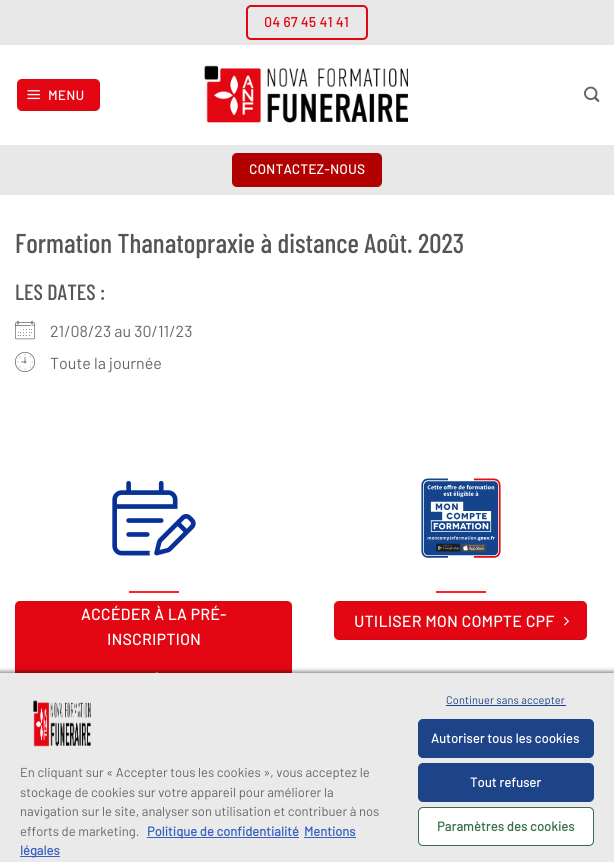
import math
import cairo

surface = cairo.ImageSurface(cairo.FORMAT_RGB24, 614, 862)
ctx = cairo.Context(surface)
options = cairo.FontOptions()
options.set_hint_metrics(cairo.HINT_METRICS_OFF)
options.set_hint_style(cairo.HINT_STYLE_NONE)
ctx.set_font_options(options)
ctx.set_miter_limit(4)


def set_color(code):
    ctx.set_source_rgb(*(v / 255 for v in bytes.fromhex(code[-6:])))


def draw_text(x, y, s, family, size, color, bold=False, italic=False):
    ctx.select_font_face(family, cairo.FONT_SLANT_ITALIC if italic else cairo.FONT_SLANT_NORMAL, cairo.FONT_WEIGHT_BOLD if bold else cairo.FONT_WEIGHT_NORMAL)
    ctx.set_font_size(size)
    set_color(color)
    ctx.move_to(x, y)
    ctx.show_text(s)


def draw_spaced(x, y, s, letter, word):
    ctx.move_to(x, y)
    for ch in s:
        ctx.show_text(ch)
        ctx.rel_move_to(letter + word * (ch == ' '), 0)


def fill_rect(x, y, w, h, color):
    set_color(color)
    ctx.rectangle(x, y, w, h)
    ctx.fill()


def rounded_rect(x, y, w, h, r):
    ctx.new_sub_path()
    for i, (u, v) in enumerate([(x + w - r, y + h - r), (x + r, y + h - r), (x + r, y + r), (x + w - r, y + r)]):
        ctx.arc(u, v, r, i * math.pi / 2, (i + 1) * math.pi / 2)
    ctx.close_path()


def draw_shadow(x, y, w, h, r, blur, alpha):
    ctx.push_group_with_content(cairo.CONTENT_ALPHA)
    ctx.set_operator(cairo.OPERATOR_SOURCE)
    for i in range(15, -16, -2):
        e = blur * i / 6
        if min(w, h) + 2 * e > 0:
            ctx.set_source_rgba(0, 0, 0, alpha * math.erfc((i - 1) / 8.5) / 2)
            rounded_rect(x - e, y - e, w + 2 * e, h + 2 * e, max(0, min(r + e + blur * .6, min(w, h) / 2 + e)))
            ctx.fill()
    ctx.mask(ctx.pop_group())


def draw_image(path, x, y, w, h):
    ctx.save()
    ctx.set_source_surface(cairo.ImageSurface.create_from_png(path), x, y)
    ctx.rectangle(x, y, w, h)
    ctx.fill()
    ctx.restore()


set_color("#ffffff")
ctx.paint()
fill_rect(0, 0, 614, 45, "#e8e8e8")
rounded_rect(247, 6, 120, 33, 4)
set_color("#e30613")
ctx.stroke()
ctx.select_font_face("Barlow", cairo.FONT_SLANT_NORMAL, cairo.FONT_WEIGHT_BOLD)
ctx.set_font_size(13.75)
draw_spaced(264, 27, "04 67 45 41 41", 0.4, 0)
rounded_rect(17, 79, 83, 32, 5)
ctx.fill()
ctx.rectangle(17.5, 79.5, 82, 31)
ctx.set_source_rgba(0, 0, 0, 0.05)
ctx.set_line_width(1)
ctx.stroke()
draw_image("assets/img1.png", 27, 90, 13, 10)
ctx.set_font_size(13)
set_color("#ffffff")
draw_spaced(48, 100, "MENU", 0.5, 0)
draw_image("assets/img2.png", 204, 65, 204, 58)
draw_image("assets/img3.png", 584, 86, 16, 16)
fill_rect(0, 145, 614, 50, "#e8e8e8")
set_color("#b20000")
rounded_rect(232, 153, 150, 34, 5)
ctx.fill()
ctx.rectangle(232.5, 153.5, 149, 33)
ctx.set_source_rgba(0, 0, 0, 0.05)
ctx.stroke()
ctx.set_font_size(13.25)
set_color("#ffffff")
draw_spaced(249, 174, "CONTACTEZ-NOUS", 0.4, 0)
draw_text(15, 253, "Formation Thanatopraxie à distance Août. 2023", "Barlow Condensed Medium", 27.25, "#555555")
draw_text(15, 300, "LES DATES :", "Barlow Condensed Medium", 22, "#555555")
draw_image("assets/img4.png", 15, 320, 20, 20)
draw_text(50, 337, "21/08/23 au 30/11/23", "Barlow", 16, "#666666")
draw_image("assets/img5.png", 15, 352, 20, 20)
draw_text(50, 369, "Toute la journée", "Barlow", 16, "#666666")
draw_image("assets/img6.png", 112, 480, 84, 76)
fill_rect(129, 591, 50, 2, "#ff2323")
set_color("#e30613")
rounded_rect(15, 601, 277, 94, 5)
ctx.fill()
ctx.rectangle(15.5, 601.5, 276, 93)
ctx.set_source_rgba(0, 0, 0, 0.05)
ctx.stroke()
ctx.select_font_face("Barlow", cairo.FONT_SLANT_NORMAL, cairo.FONT_WEIGHT_BOLD)
ctx.set_font_size(15.5)
set_color("#ffffff")
draw_spaced(81, 620, "ACCÉDER À LA PRÉ-", 0.5, 0)
draw_spaced(107, 645, "INSCRIPTION", 0.5, 0)
draw_image("assets/img7.png", 156, 671, 2, 2)
draw_image("assets/img8.png", 421, 478, 80, 80)
fill_rect(436, 591, 50, 2, "#ff2323")
set_color("#e30613")
rounded_rect(334, 601, 253, 39, 5)
ctx.fill()
ctx.rectangle(334.5, 601.5, 252, 38)
ctx.set_source_rgba(0, 0, 0, 0.05)
ctx.stroke()
set_color("#ffffff")
draw_spaced(354, 627, "UTILISER MON COMPTE CPF", 0.5, 0)
draw_image("assets/img9.png", 564, 616, 5, 10)
set_color("#000000")
draw_shadow(0, 671, 614, 191, 0, 2, 0.35)
draw_shadow(0, 673, 614, 189, 0, 2, 0.2)
fill_rect(0, 673, 614, 189, "#eaeaea")
draw_image("assets/img10.png", 33, 700, 58, 47)
draw_text(20, 777, "En cliquant sur « Accepter tous les cookies », vous acceptez le", "Barlow", 13, "#666666")
draw_text(20, 797, "stockage de cookies sur votre appareil pour améliorer la", "Barlow", 13, "#666666")
draw_text(20, 816, "navigation sur le site, analyser son utilisation et contribuer à nos", "Barlow", 13, "#666666")
draw_text(20, 836, "efforts de marketing.", "Barlow", 13, "#666666")
fill_rect(147, 837, 152, 1, "#3860be")
draw_text(147, 836, "Politique de confidentialité", "Barlow", 13, "#3860be", bold=True)
draw_text(304, 836, "Mentions", "Barlow", 13, "#3860be", bold=True)
fill_rect(304, 837, 52, 1, "#3860be")
fill_rect(20, 856, 40, 1, "#3860be")
draw_text(20, 855, "légales", "Barlow", 13, "#3860be", bold=True)
fill_rect(446, 705, 120, 1, "#1d4388")
ctx.select_font_face("Barlow")
ctx.set_font_size(11)
draw_spaced(446, 704, "Continuer sans accepter", 0.1, 0)
rounded_rect(418.5, 719.5, 175, 38, 4.5)
ctx.fill_preserve()
ctx.stroke()
ctx.select_font_face("Barlow", cairo.FONT_SLANT_NORMAL, cairo.FONT_WEIGHT_BOLD)
ctx.set_font_size(13)
set_color("#ffffff")
draw_spaced(431, 743, "Autoriser tous les cookies", 0.1, 0)
set_color("#1d4388")
rounded_rect(418.5, 763.5, 175, 38, 4.5)
ctx.fill_preserve()
ctx.stroke()
set_color("#ffffff")
draw_spaced(470, 787, "Tout refuser", 0.1, 0)
rounded_rect(418.5, 807.5, 175, 38, 4.5)
ctx.fill_preserve()
set_color("#346e4a")
ctx.stroke()
draw_spaced(437, 831, "Paramètres des cookies", 0.1, 0)
surface.write_to_png("output.png")
